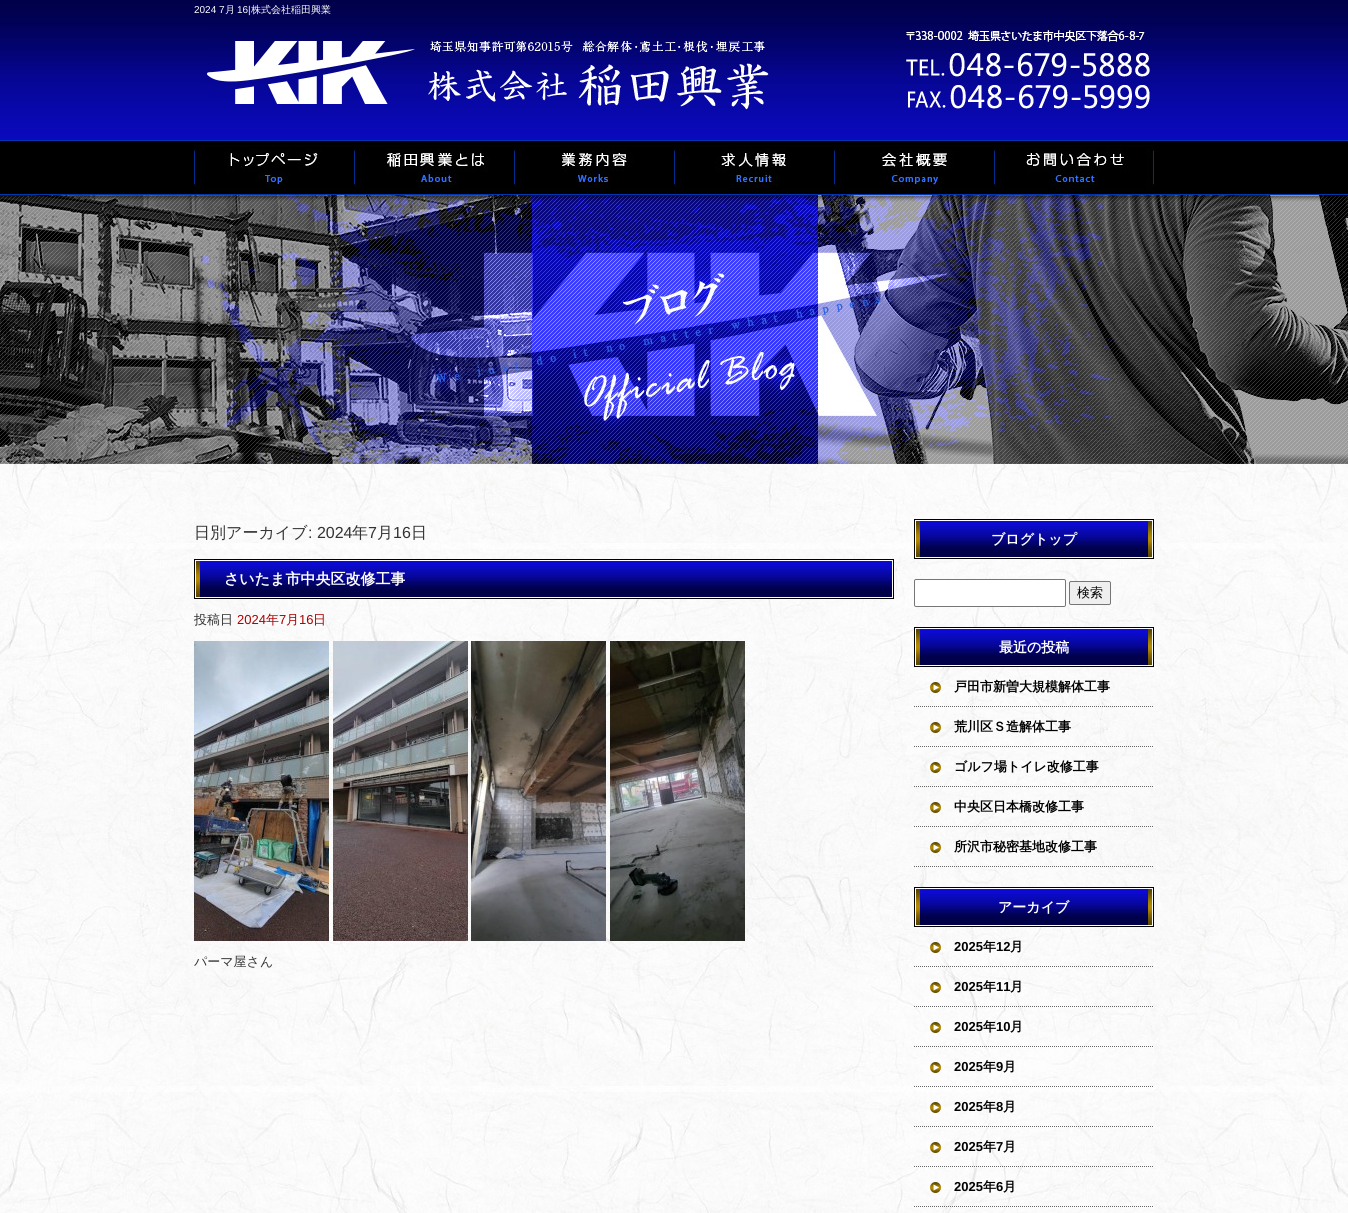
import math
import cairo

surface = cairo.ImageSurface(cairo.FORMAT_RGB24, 1348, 1213)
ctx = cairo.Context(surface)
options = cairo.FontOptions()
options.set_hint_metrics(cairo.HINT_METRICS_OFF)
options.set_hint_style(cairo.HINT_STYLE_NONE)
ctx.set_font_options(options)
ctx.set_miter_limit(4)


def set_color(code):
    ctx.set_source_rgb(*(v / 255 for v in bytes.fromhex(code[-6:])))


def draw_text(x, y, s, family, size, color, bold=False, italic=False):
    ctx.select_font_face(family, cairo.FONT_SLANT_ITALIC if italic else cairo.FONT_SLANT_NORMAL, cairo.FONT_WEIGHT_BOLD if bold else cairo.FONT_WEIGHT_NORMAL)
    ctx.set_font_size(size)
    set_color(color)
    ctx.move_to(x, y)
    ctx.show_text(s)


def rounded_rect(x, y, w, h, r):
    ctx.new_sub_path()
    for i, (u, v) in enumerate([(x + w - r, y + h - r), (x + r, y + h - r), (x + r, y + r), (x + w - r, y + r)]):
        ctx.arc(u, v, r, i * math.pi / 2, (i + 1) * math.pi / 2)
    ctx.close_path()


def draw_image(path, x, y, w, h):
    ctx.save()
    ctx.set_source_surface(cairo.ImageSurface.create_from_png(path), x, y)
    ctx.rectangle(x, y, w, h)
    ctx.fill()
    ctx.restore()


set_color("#ffffff")
ctx.paint()
draw_image("assets/img1.png", 0, 464, 1348, 749)
draw_image("assets/img2.png", 0, 0, 1348, 464)
draw_image("assets/img3.png", 207, 25, 947, 86)
draw_text(194, 13, "2024 7", "Liberation Sans", 10, "#ffffff")
draw_text(225, 13, "月", "WenQuanYi Zen Hei Medium", 10, "#ffffff")
draw_text(237, 13, "16|", "Liberation Sans", 10, "#ffffff")
draw_text(251, 13, "株式会社稲田興業", "WenQuanYi Zen Hei Medium", 10, "#ffffff")
draw_image("assets/img4.png", 194, 145, 160, 50)
draw_image("assets/img5.png", 354, 145, 160, 50)
draw_image("assets/img6.png", 514, 145, 160, 50)
draw_image("assets/img7.png", 674, 145, 160, 50)
draw_image("assets/img8.png", 834, 145, 160, 50)
draw_image("assets/img9.png", 994, 145, 160, 50)
draw_image("assets/img10.png", 194, 195, 960, 269)
draw_text(194, 538, "日別アーカイブ", "WenQuanYi Zen Hei Medium", 16, "#333333")
draw_text(308, 538, ": 2024", "Liberation Sans", 16, "#333333")
draw_text(352, 538, "年", "WenQuanYi Zen Hei Medium", 16, "#333333")
draw_text(368, 538, "7", "Liberation Sans", 16, "#333333")
draw_text(377, 538, "月", "WenQuanYi Zen Hei Medium", 16, "#333333")
draw_text(393, 538, "16", "Liberation Sans", 16, "#333333")
draw_text(411, 538, "日", "WenQuanYi Zen Hei Medium", 16, "#333333")
draw_image("assets/img11.png", 194, 559, 700, 40)
draw_text(224, 584, "さいたま市中央区改修工事", "WenQuanYi Zen Hei", 15, "#ffffff", bold=True)
draw_text(194, 624, "投稿日", "WenQuanYi Zen Hei Medium", 13, "#333333")
draw_text(237, 624, "2024", "Liberation Sans", 13, "#ab0000")
draw_text(266, 624, "年", "WenQuanYi Zen Hei Medium", 13, "#ab0000")
draw_text(279, 624, "7", "Liberation Sans", 13, "#ab0000")
draw_text(286, 624, "月", "WenQuanYi Zen Hei Medium", 13, "#ab0000")
draw_text(299, 624, "16", "Liberation Sans", 13, "#ab0000")
draw_text(313, 624, "日", "WenQuanYi Zen Hei Medium", 13, "#ab0000")
draw_image("assets/img12.png", 194, 641, 135, 300)
draw_image("assets/img13.png", 333, 641, 135, 300)
draw_image("assets/img14.png", 471, 641, 135, 300)
draw_image("assets/img15.png", 610, 641, 135, 300)
draw_text(194, 966, "パーマ屋さん", "WenQuanYi Zen Hei Medium", 13, "#333333")
draw_image("assets/img16.png", 914, 519, 240, 40)
draw_text(991, 544, "ブログトップ", "WenQuanYi Zen Hei", 14, "#ffffff", bold=True)
rounded_rect(914.5, 579.5, 151, 27, 1.5)
ctx.fill_preserve()
set_color("#767676")
ctx.set_line_width(1)
ctx.stroke()
set_color("#efefef")
rounded_rect(1069.5, 581.5, 41, 23, 1.5)
ctx.fill_preserve()
set_color("#767676")
ctx.stroke()
draw_text(1077, 597, "検索", "WenQuanYi Zen Hei Medium", 13, "#000000")
draw_image("assets/img16.png", 914, 627, 240, 40)
draw_text(999, 652, "最近の投稿", "WenQuanYi Zen Hei", 14, "#ffffff", bold=True)
draw_image("assets/img17.png", 914, 682, 239, 25)
draw_text(954, 691, "戸田市新曽大規模解体工事", "WenQuanYi Zen Hei", 13, "#000000", bold=True)
draw_image("assets/img18.png", 914, 722, 239, 25)
draw_text(954, 731, "荒川区Ｓ造解体工事", "WenQuanYi Zen Hei", 13, "#000000", bold=True)
draw_image("assets/img19.png", 914, 762, 239, 25)
draw_text(954, 771, "ゴルフ場トイレ改修工事", "WenQuanYi Zen Hei", 13, "#000000", bold=True)
draw_image("assets/img20.png", 914, 802, 239, 25)
draw_text(954, 811, "中央区日本橋改修工事", "WenQuanYi Zen Hei", 13, "#000000", bold=True)
draw_image("assets/img21.png", 914, 842, 239, 25)
draw_text(954, 851, "所沢市秘密基地改修工事", "WenQuanYi Zen Hei", 13, "#000000", bold=True)
draw_image("assets/img16.png", 914, 887, 240, 40)
draw_text(998, 912, "アーカイブ", "WenQuanYi Zen Hei", 14, "#ffffff", bold=True)
draw_image("assets/img22.png", 914, 942, 239, 25)
draw_text(954, 951, "2025", "Liberation Sans", 13, "#000000", bold=True)
draw_text(983, 951, "年", "WenQuanYi Zen Hei", 13, "#000000", bold=True)
draw_text(996, 951, "12", "Liberation Sans", 13, "#000000", bold=True)
draw_text(1010, 951, "月", "WenQuanYi Zen Hei", 13, "#000000", bold=True)
draw_image("assets/img23.png", 914, 982, 239, 25)
draw_text(954, 991, "2025", "Liberation Sans", 13, "#000000", bold=True)
draw_text(983, 991, "年", "WenQuanYi Zen Hei", 13, "#000000", bold=True)
draw_text(996, 991, "11", "Liberation Sans", 13, "#000000", bold=True)
draw_text(1010, 991, "月", "WenQuanYi Zen Hei", 13, "#000000", bold=True)
draw_image("assets/img24.png", 914, 1022, 239, 25)
draw_text(954, 1031, "2025", "Liberation Sans", 13, "#000000", bold=True)
draw_text(983, 1031, "年", "WenQuanYi Zen Hei", 13, "#000000", bold=True)
draw_text(996, 1031, "10", "Liberation Sans", 13, "#000000", bold=True)
draw_text(1010, 1031, "月", "WenQuanYi Zen Hei", 13, "#000000", bold=True)
draw_image("assets/img25.png", 914, 1062, 239, 25)
draw_text(954, 1071, "2025", "Liberation Sans", 13, "#000000", bold=True)
draw_text(983, 1071, "年", "WenQuanYi Zen Hei", 13, "#000000", bold=True)
draw_text(996, 1071, "9", "Liberation Sans", 13, "#000000", bold=True)
draw_text(1003, 1071, "月", "WenQuanYi Zen Hei", 13, "#000000", bold=True)
draw_image("assets/img26.png", 914, 1102, 239, 25)
draw_text(954, 1111, "2025", "Liberation Sans", 13, "#000000", bold=True)
draw_text(983, 1111, "年", "WenQuanYi Zen Hei", 13, "#000000", bold=True)
draw_text(996, 1111, "8", "Liberation Sans", 13, "#000000", bold=True)
draw_text(1003, 1111, "月", "WenQuanYi Zen Hei", 13, "#000000", bold=True)
draw_image("assets/img27.png", 914, 1142, 239, 25)
draw_text(954, 1151, "2025", "Liberation Sans", 13, "#000000", bold=True)
draw_text(983, 1151, "年", "WenQuanYi Zen Hei", 13, "#000000", bold=True)
draw_text(996, 1151, "7", "Liberation Sans", 13, "#000000", bold=True)
draw_text(1003, 1151, "月", "WenQuanYi Zen Hei", 13, "#000000", bold=True)
draw_image("assets/img28.png", 914, 1182, 239, 25)
draw_text(954, 1191, "2025", "Liberation Sans", 13, "#000000", bold=True)
draw_text(983, 1191, "年", "WenQuanYi Zen Hei", 13, "#000000", bold=True)
draw_text(996, 1191, "6", "Liberation Sans", 13, "#000000", bold=True)
draw_text(1003, 1191, "月", "WenQuanYi Zen Hei", 13, "#000000", bold=True)
surface.write_to_png("output.png")
